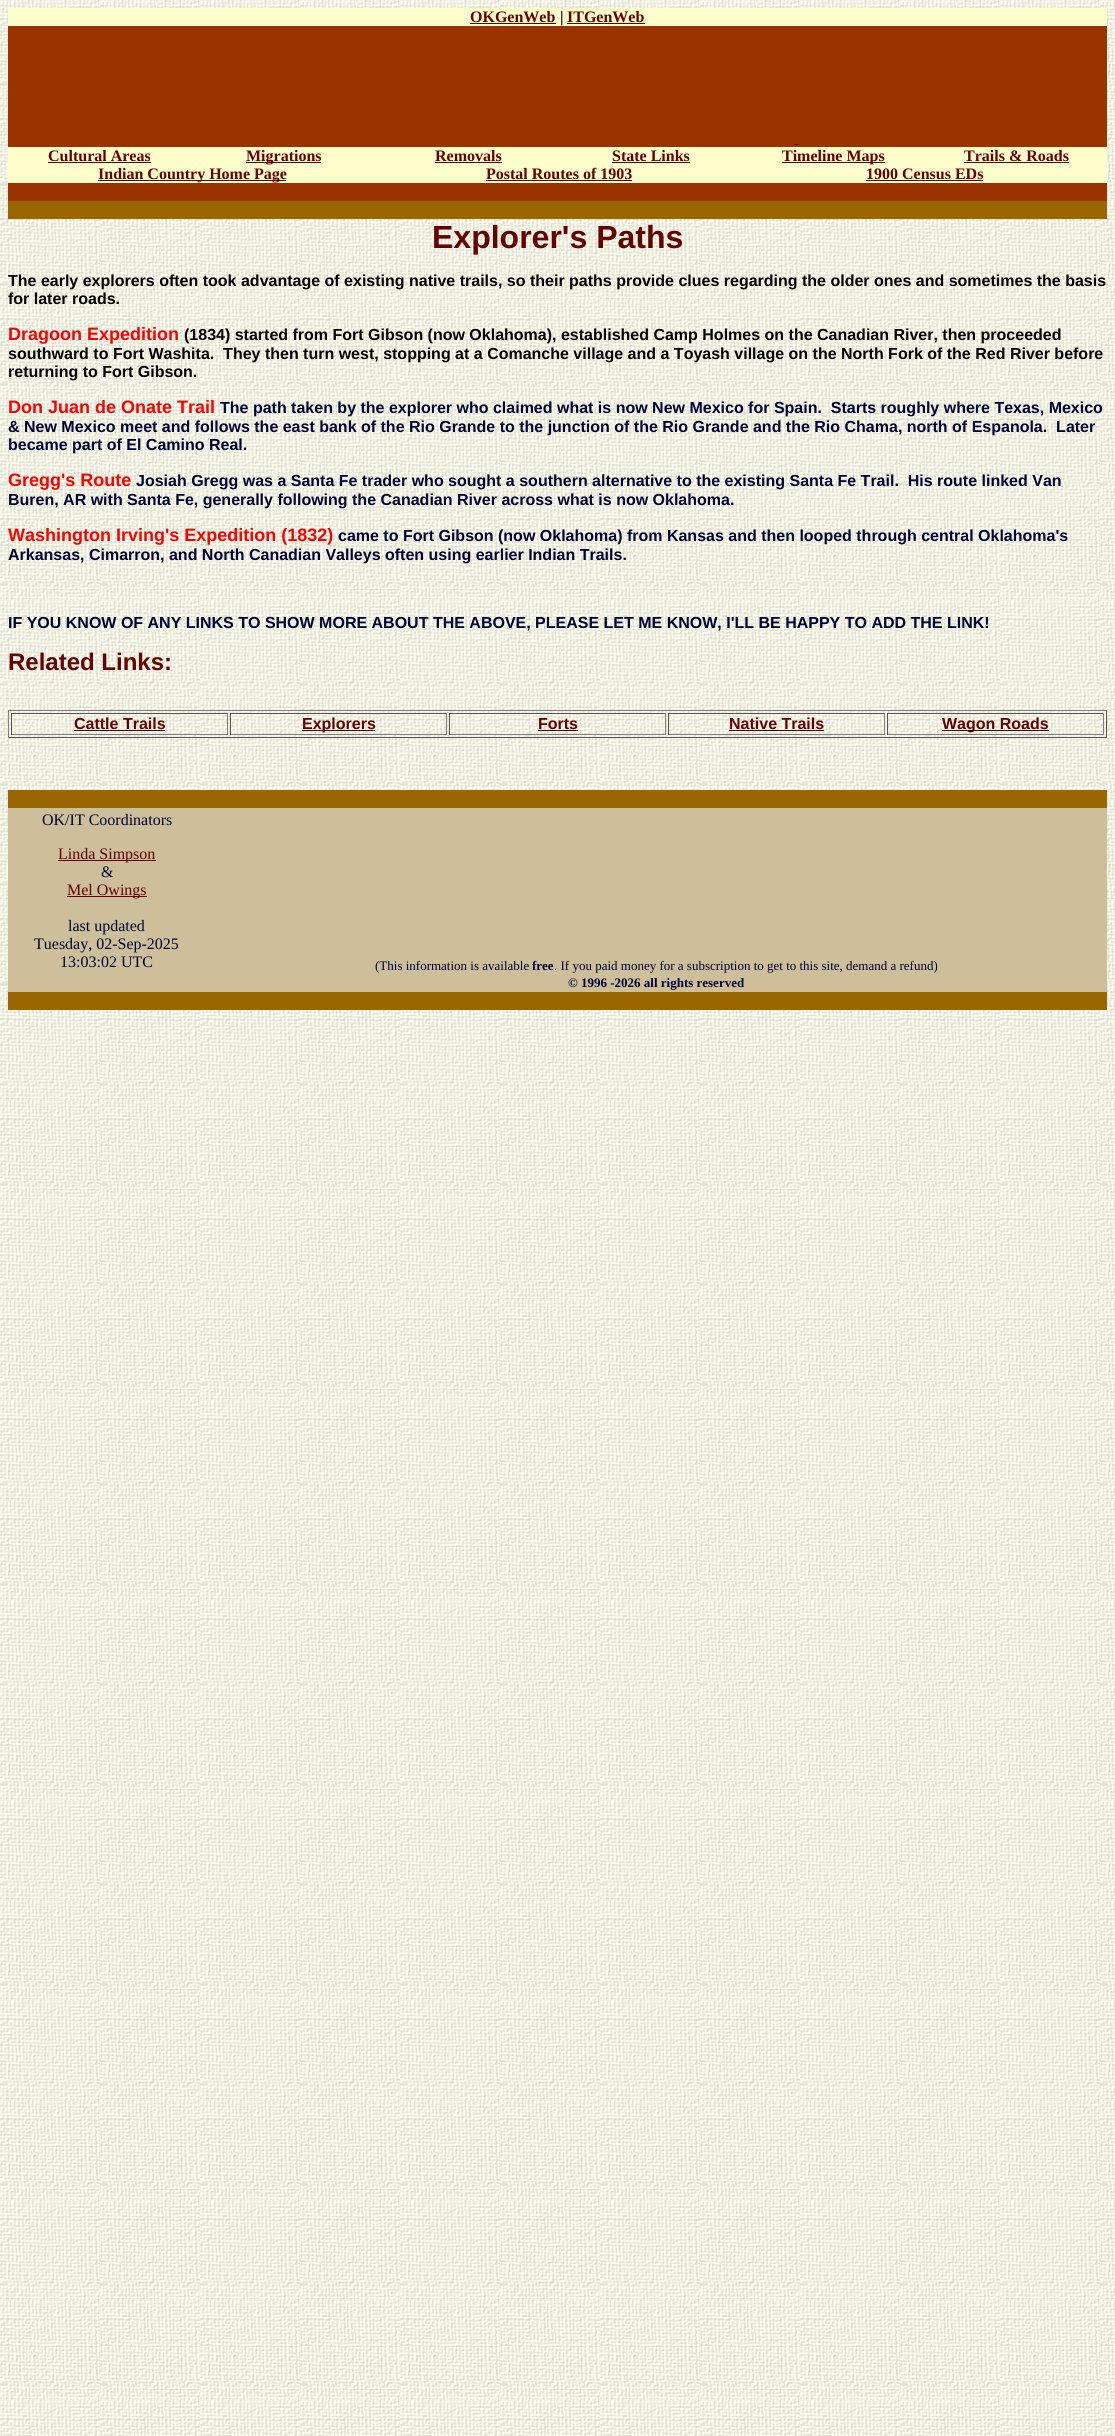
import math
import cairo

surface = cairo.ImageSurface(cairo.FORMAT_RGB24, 1115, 2436)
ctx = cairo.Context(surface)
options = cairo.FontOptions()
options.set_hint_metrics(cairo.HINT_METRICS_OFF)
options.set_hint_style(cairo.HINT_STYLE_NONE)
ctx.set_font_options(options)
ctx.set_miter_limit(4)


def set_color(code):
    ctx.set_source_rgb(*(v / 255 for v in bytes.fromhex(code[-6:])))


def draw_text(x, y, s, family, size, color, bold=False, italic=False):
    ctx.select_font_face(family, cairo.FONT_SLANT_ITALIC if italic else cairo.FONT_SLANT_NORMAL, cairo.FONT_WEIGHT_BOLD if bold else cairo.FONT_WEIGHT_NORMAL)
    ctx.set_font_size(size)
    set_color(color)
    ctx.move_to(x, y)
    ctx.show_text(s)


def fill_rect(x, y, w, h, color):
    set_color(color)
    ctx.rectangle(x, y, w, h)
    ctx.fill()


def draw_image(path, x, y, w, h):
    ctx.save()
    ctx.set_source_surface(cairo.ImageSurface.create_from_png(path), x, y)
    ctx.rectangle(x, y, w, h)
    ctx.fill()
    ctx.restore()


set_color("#ffffff")
ctx.paint()
draw_image("assets/img1.png", 0, 0, 1115, 2436)
fill_rect(8, 26, 1099, 175, "#993300")
fill_rect(8, 8, 1099, 18, "#ffffcc")
draw_text(470, 22, "OKGenWeb", "Liberation Serif", 16, "#660000", bold=True)
fill_rect(470, 23, 86, 1, "#660000")
draw_text(560, 22, "|", "Liberation Serif", 16, "#000033", bold=True)
draw_text(567, 22, "ITGenWeb", "Liberation Serif", 16, "#660000", bold=True)
fill_rect(567, 23, 78, 1, "#660000")
fill_rect(794, 144, 4, 1, "#660000")
fill_rect(8, 147, 1099, 18, "#ffffcc")
draw_text(48, 161, "Cultural Areas", "Liberation Serif", 16, "#660000", bold=True)
fill_rect(48, 162, 103, 1, "#660000")
fill_rect(246, 162, 75, 1, "#660000")
draw_text(246, 161, "Migrations", "Liberation Serif", 16, "#660000", bold=True)
draw_text(435, 161, "Removals", "Liberation Serif", 16, "#660000", bold=True)
fill_rect(435, 162, 67, 1, "#660000")
draw_text(612, 161, "State Links", "Liberation Serif", 16, "#660000", bold=True)
fill_rect(612, 162, 78, 1, "#660000")
fill_rect(782, 162, 103, 1, "#660000")
draw_text(782, 161, "Timeline Maps", "Liberation Serif", 16, "#660000", bold=True)
draw_text(964, 161, "Trails & Roads", "Liberation Serif", 16, "#660000", bold=True)
fill_rect(964, 162, 105, 1, "#660000")
fill_rect(8, 165, 1099, 18, "#ffffcc")
fill_rect(98, 180, 188, 1, "#660000")
draw_text(98, 179, "Indian Country Home Page", "Liberation Serif", 16, "#660000", bold=True)
draw_text(486, 179, "Postal Routes of 1903", "Liberation Serif", 16, "#660000", bold=True)
fill_rect(486, 180, 146, 1, "#660000")
draw_text(866, 179, "1900 Census EDs", "Liberation Serif", 16, "#660000", bold=True)
fill_rect(866, 180, 117, 1, "#660000")
fill_rect(8, 201, 1099, 18, "#996600")
draw_text(432, 248, "Explorer's Paths", "Liberation Sans", 32, "#660000", bold=True)
draw_text(8, 286, "The early explorers often took advantage of existing native trails, so their paths provide clues regarding the older ones and sometimes the basis", "Liberation Sans", 16, "#000000", bold=True)
draw_text(8, 304, "for later roads.", "Liberation Sans", 16, "#000000", bold=True)
draw_text(8, 340, "Dragoon Expedition", "Liberation Sans", 18, "#ff0000", bold=True)
draw_text(184, 340, "(1834) started from Fort Gibson (now Oklahoma), established Camp Holmes on the Canadian River, then proceeded", "Liberation Sans", 16, "#000000", bold=True)
draw_text(8, 359, "southward to Fort Washita.  They then turn west, stopping at a Comanche village and a Toyash village on the North Fork of the Red River before", "Liberation Sans", 16, "#000000", bold=True)
draw_text(8, 377, "returning to Fort Gibson.", "Liberation Sans", 16, "#000000", bold=True)
draw_text(8, 413, "Don Juan de Onate Trail", "Liberation Sans", 18, "#ff0000", bold=True)
draw_text(220, 413, "The path taken by the explorer who claimed what is now New Mexico for Spain.  Starts roughly where Texas, Mexico", "Liberation Sans", 16, "#000033", bold=True)
draw_text(8, 432, "& New Mexico meet and follows the east bank of the Rio Grande to the junction of the Rio Grande and the Rio Chama, north of Espanola.  Later", "Liberation Sans", 16, "#000033", bold=True)
draw_text(8, 450, "became part of El Camino Real.", "Liberation Sans", 16, "#000033", bold=True)
draw_text(8, 486, "Gregg's Route", "Liberation Sans", 18, "#ff0000", bold=True)
draw_text(136, 486, "Josiah Gregg was a Santa Fe trader who sought a southern alternative to the existing Santa Fe Trail.  His route linked Van", "Liberation Sans", 16, "#000033", bold=True)
draw_text(8, 505, "Buren, AR with Santa Fe, generally following the Canadian River across what is now Oklahoma.", "Liberation Sans", 16, "#000033", bold=True)
draw_text(8, 541, "Washington Irving's Expedition (1832)", "Liberation Sans", 18, "#ff0000", bold=True)
draw_text(338, 541, "came to Fort Gibson (now Oklahoma) from Kansas and then looped through central Oklahoma's", "Liberation Sans", 16, "#000033", bold=True)
draw_text(8, 560, "Arkansas, Cimarron, and North Canadian Valleys often using earlier Indian Trails.", "Liberation Sans", 16, "#000033", bold=True)
draw_text(8, 628, "IF YOU KNOW OF ANY LINKS TO SHOW MORE ABOUT THE ABOVE, PLEASE LET ME KNOW, I'LL BE HAPPY TO ADD THE LINK!", "Liberation Sans", 16, "#000033", bold=True)
draw_text(8, 670, "Related Links:", "Liberation Sans", 24, "#660000", bold=True)
fill_rect(8, 710, 1099, 1, "#808080")
fill_rect(1106, 710, 1, 28, "#555555")
fill_rect(8, 737, 1099, 1, "#555555")
fill_rect(8, 710, 1, 28, "#808080")
fill_rect(11, 713, 217, 1, "#555555")
fill_rect(227, 713, 1, 22, "#808080")
fill_rect(11, 734, 217, 1, "#808080")
fill_rect(11, 713, 1, 22, "#555555")
draw_text(74, 729, "Cattle Trails", "Liberation Sans", 16, "#660000", bold=True)
fill_rect(74, 730, 91, 1, "#660000")
fill_rect(230, 713, 217, 1, "#555555")
fill_rect(446, 713, 1, 22, "#808080")
fill_rect(230, 734, 217, 1, "#808080")
fill_rect(230, 713, 1, 22, "#555555")
fill_rect(302, 730, 73, 1, "#660000")
draw_text(302, 729, "Explorers", "Liberation Sans", 16, "#660000", bold=True)
fill_rect(449, 713, 217, 1, "#555555")
fill_rect(665, 713, 1, 22, "#808080")
fill_rect(449, 734, 217, 1, "#808080")
fill_rect(449, 713, 1, 22, "#555555")
draw_text(538, 729, "Forts", "Liberation Sans", 16, "#660000", bold=True)
fill_rect(538, 730, 40, 1, "#660000")
fill_rect(668, 713, 217, 1, "#555555")
fill_rect(884, 713, 1, 22, "#808080")
fill_rect(668, 734, 217, 1, "#808080")
fill_rect(668, 713, 1, 22, "#555555")
draw_text(729, 729, "Native Trails", "Liberation Sans", 16, "#660000", bold=True)
fill_rect(729, 730, 95, 1, "#660000")
fill_rect(887, 713, 217, 1, "#555555")
fill_rect(1103, 713, 1, 22, "#808080")
fill_rect(887, 734, 217, 1, "#808080")
fill_rect(887, 713, 1, 22, "#555555")
fill_rect(942, 730, 107, 1, "#660000")
draw_text(942, 729, "Wagon Roads", "Liberation Sans", 16, "#660000", bold=True)
fill_rect(8, 790, 1099, 18, "#996600")
fill_rect(8, 808, 1099, 166, "#ccbf99")
draw_text(42, 825, "OK/IT Coordinators", "Liberation Serif", 16, "#000033")
fill_rect(58, 860, 98, 1, "#660000")
draw_text(58, 859, "Linda Simpson", "Liberation Serif", 16, "#660000")
draw_text(101, 877, "&", "Liberation Serif", 16, "#000033")
fill_rect(67, 896, 80, 1, "#660000")
draw_text(67, 895, "Mel Owings", "Liberation Serif", 16, "#660000")
draw_text(68, 931, "last updated", "Liberation Serif", 16, "#000033")
draw_text(34, 949, "Tuesday, 02-Sep-2025", "Liberation Serif", 16, "#000033")
draw_text(60, 967, "13:03:02 UTC", "Liberation Serif", 16, "#000033")
draw_text(375, 970, "(This information is available", "Liberation Serif", 13, "#000033")
draw_text(532, 970, "free", "Liberation Serif", 13, "#000033", bold=True)
draw_text(554, 970, ". If you paid money for a subscription to get to this site, demand a refund)", "Liberation Serif", 13, "#000033")
fill_rect(8, 974, 1099, 18, "#ccbf99")
draw_text(568, 987, "© 1996 -2026 all rights reserved", "Liberation Serif", 13, "#000033", bold=True)
fill_rect(8, 992, 1099, 18, "#996600")
surface.write_to_png("output.png")
